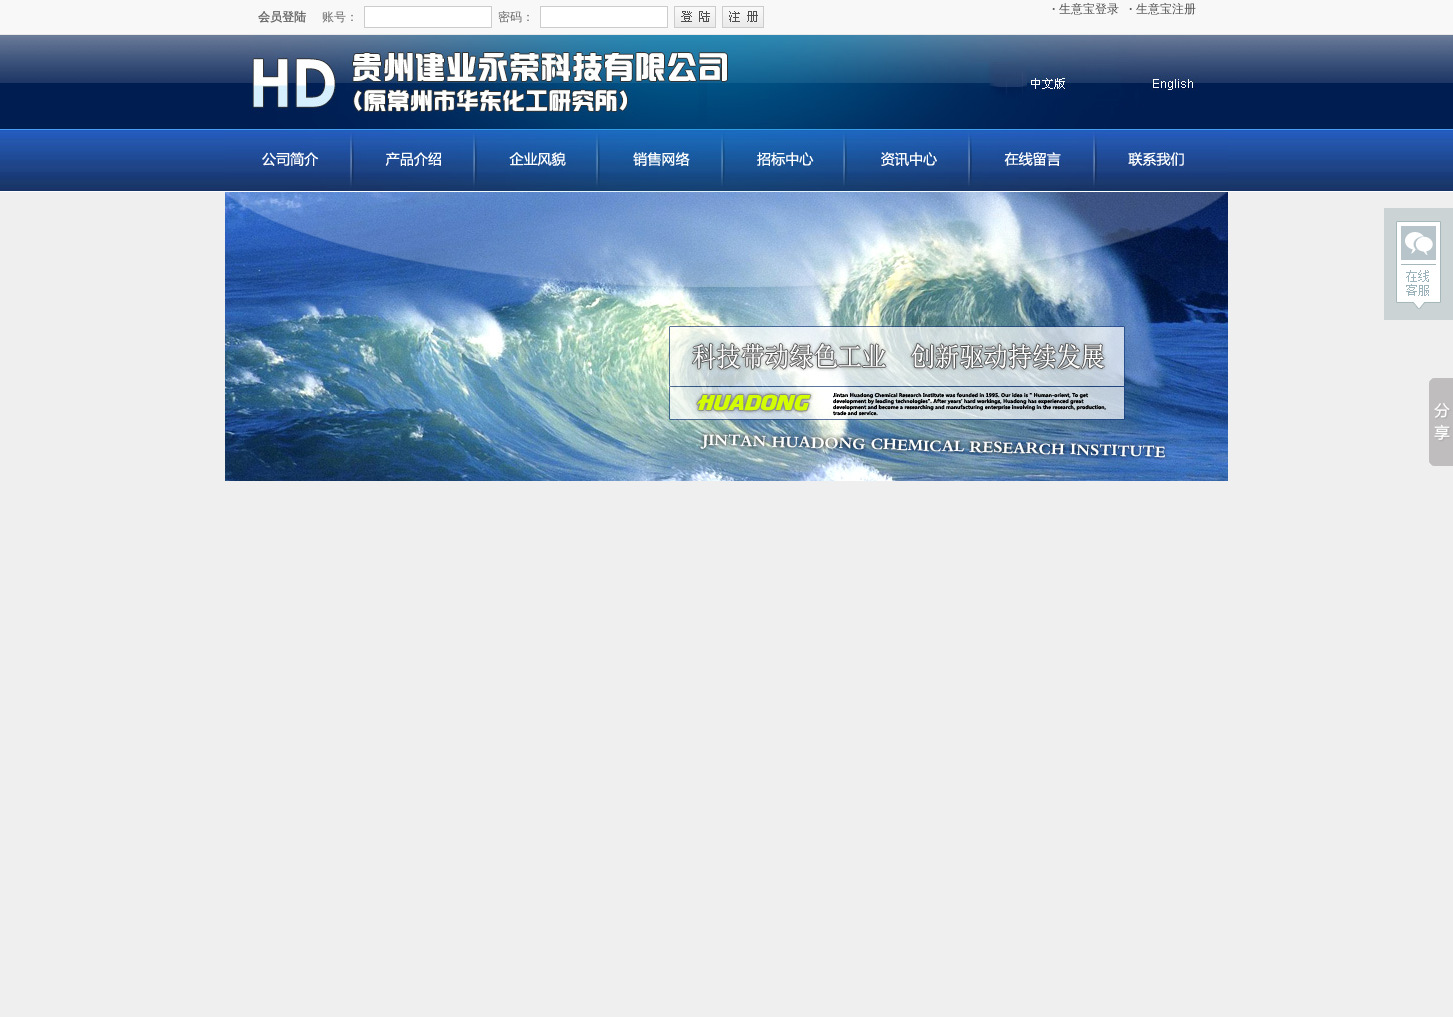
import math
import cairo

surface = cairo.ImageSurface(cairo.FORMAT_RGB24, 1453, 1017)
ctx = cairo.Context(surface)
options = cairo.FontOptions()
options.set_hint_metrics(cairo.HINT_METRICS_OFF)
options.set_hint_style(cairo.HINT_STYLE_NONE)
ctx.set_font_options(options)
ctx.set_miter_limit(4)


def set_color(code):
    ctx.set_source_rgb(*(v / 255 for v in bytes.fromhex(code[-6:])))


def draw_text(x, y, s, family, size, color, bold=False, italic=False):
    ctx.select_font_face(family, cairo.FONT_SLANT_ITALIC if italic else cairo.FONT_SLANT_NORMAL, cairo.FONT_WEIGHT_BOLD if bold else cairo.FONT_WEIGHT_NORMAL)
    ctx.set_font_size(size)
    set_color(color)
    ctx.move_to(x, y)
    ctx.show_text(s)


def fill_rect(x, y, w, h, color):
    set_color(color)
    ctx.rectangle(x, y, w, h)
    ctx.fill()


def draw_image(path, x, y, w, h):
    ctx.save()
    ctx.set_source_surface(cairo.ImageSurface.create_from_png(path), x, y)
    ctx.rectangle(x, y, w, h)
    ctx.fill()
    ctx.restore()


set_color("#efefef")
ctx.paint()
draw_image("assets/img1.png", 0, 35, 1453, 157)
fill_rect(0, 0, 1453, 34, "#f8f8f8")
fill_rect(0, 34, 1453, 1, "#e8e8e8")
draw_text(1052, 13, "·", "Liberation Sans", 12, "#4f4f4f", bold=True)
draw_text(1059, 13, "生意宝登录", "WenQuanYi Zen Hei Medium", 12, "#4f4f4f")
draw_text(1129, 13, "·", "Liberation Sans", 12, "#4f4f4f", bold=True)
draw_text(1136, 13, "生意宝注册", "WenQuanYi Zen Hei Medium", 12, "#4f4f4f")
draw_text(258, 21, "会员登陆", "WenQuanYi Zen Hei", 12, "#666666", bold=True)
draw_text(322, 21, "账号：", "WenQuanYi Zen Hei Medium", 12, "#666666")
set_color("#ffffff")
ctx.rectangle(364.5, 6.5, 127, 21)
ctx.fill_preserve()
set_color("#cccccc")
ctx.set_line_width(1)
ctx.stroke()
draw_text(498, 21, "密码：", "WenQuanYi Zen Hei Medium", 12, "#666666")
set_color("#ffffff")
ctx.rectangle(540.5, 6.5, 127, 21)
ctx.fill_preserve()
set_color("#cccccc")
ctx.stroke()
draw_image("assets/img2.png", 674, 6, 42, 22)
draw_image("assets/img3.png", 722, 6, 42, 22)
draw_image("assets/img4.png", 249, 35, 526, 94)
draw_image("assets/img5.png", 775, 35, 424, 94)
draw_image("assets/img6.png", 225, 129, 1003, 63)
draw_image("assets/img7.png", 225, 192, 1003, 289)
draw_image("assets/img8.png", 1384, 208, 69, 112)
draw_image("assets/img9.png", 1429, 378, 24, 88)
surface.write_to_png("output.png")
